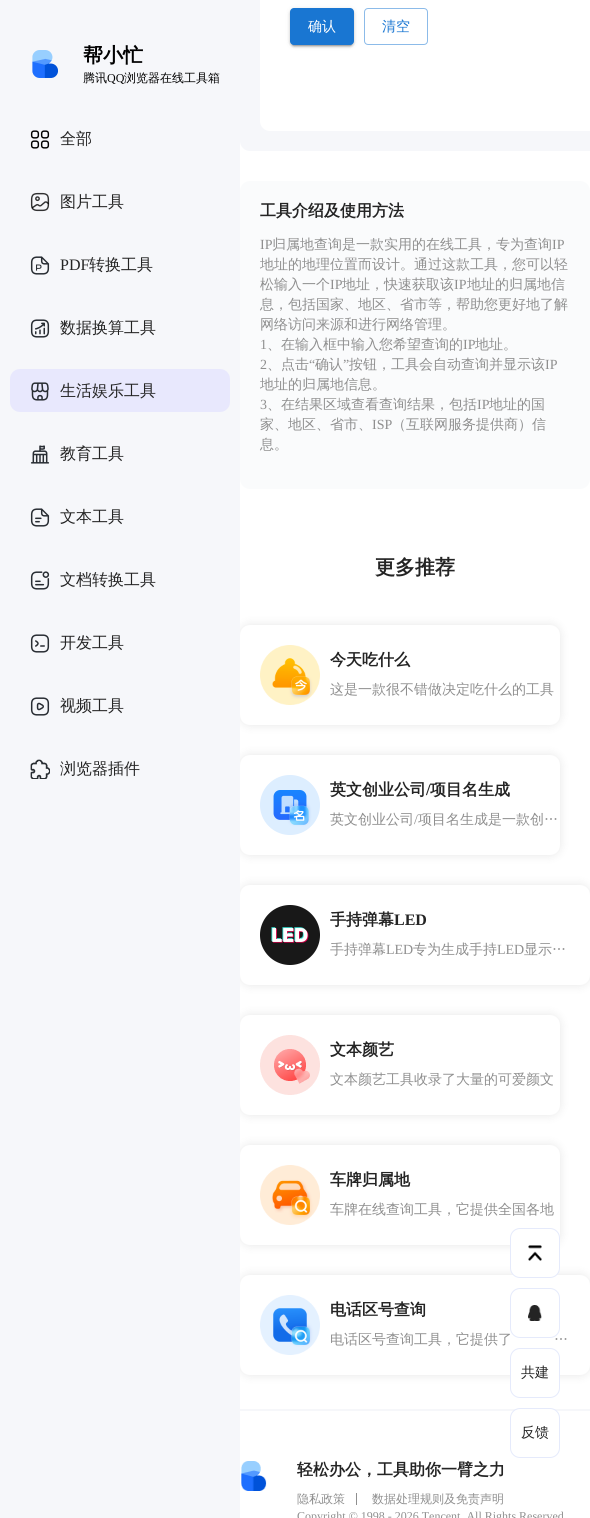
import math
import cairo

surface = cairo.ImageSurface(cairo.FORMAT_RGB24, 590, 1518)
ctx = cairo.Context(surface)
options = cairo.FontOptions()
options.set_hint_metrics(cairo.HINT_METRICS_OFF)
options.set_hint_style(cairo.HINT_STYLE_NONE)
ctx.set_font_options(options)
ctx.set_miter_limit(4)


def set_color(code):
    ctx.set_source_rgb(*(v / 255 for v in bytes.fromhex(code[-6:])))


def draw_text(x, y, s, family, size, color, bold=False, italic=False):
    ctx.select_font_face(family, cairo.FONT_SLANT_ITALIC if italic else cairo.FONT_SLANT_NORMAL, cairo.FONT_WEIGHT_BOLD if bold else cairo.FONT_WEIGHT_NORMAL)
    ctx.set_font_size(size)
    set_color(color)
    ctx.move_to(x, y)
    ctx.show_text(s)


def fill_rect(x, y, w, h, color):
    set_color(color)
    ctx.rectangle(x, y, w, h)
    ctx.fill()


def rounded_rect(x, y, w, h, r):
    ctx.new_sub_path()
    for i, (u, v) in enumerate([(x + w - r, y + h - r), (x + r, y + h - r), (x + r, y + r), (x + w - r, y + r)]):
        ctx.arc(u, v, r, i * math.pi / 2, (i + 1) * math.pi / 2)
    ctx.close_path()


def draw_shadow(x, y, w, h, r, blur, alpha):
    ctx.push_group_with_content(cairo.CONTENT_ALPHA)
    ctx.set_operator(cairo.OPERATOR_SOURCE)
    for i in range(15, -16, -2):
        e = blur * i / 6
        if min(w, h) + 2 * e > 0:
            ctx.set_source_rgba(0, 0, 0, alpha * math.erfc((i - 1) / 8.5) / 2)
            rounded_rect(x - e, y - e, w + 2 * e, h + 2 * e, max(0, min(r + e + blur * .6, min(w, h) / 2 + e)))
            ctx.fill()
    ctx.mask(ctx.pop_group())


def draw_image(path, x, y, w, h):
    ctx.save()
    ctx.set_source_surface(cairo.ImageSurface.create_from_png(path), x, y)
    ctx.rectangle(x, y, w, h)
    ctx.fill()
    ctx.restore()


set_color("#ffffff")
ctx.paint()
set_color("#000000")
draw_shadow(240, 625, 320, 100, 10, 5, 0.1)
draw_shadow(240, 755, 320, 100, 10, 5, 0.1)
draw_shadow(240, 885, 350, 100, 10, 5, 0.1)
draw_shadow(240, 1015, 320, 100, 10, 5, 0.1)
draw_shadow(240, 1145, 320, 100, 10, 5, 0.1)
draw_shadow(240, 1275, 350, 100, 10, 5, 0.1)
fill_rect(0, 0, 240, 1518, "#f6f7fa")
draw_image("assets/img1.png", 32, 50, 26, 28)
draw_text(83, 62, "帮小忙", "WenQuanYi Zen Hei", 20, "#000000", bold=True)
draw_text(83, 82, "腾讯", "WenQuanYi Zen Hei Medium", 12, "#000000")
draw_text(107, 82, "QQ", "Liberation Serif", 12, "#000000")
draw_text(124, 82, "浏览器在线工具箱", "WenQuanYi Zen Hei Medium", 12, "#000000")
draw_image("assets/img2.png", 30, 130, 20, 19)
draw_text(60, 144, "全部", "WenQuanYi Zen Hei Medium", 16, "#242424")
draw_image("assets/img3.png", 30, 192, 20, 20)
draw_text(60, 207, "图片工具", "WenQuanYi Zen Hei Medium", 16, "#242424")
draw_image("assets/img4.png", 30, 256, 20, 19)
draw_text(60, 270, "PDF", "Liberation Serif", 16, "#242424")
draw_text(89, 270, "转换工具", "WenQuanYi Zen Hei Medium", 16, "#242424")
draw_image("assets/img5.png", 30, 319, 20, 19)
draw_text(60, 333, "数据换算工具", "WenQuanYi Zen Hei Medium", 16, "#242424")
set_color("#e8e8fd")
rounded_rect(10, 369, 220, 43, 10)
ctx.fill()
draw_image("assets/img6.png", 31, 382, 18, 19)
draw_text(60, 396, "生活娱乐工具", "WenQuanYi Zen Hei Medium", 16, "#242424")
draw_image("assets/img7.png", 30, 445, 20, 19)
draw_text(60, 459, "教育工具", "WenQuanYi Zen Hei Medium", 16, "#242424")
draw_image("assets/img8.png", 30, 508, 20, 19)
draw_text(60, 522, "文本工具", "WenQuanYi Zen Hei Medium", 16, "#242424")
draw_image("assets/img9.png", 30, 571, 20, 19)
draw_text(60, 585, "文档转换工具", "WenQuanYi Zen Hei Medium", 16, "#242424")
draw_image("assets/img10.png", 30, 634, 20, 19)
draw_text(60, 648, "开发工具", "WenQuanYi Zen Hei Medium", 16, "#242424")
draw_image("assets/img11.png", 30, 697, 20, 19)
draw_text(60, 711, "视频工具", "WenQuanYi Zen Hei Medium", 16, "#242424")
draw_image("assets/img12.png", 30, 759, 20, 20)
draw_text(60, 774, "浏览器插件", "WenQuanYi Zen Hei Medium", 16, "#242424")
set_color("#f6f7fa")
rounded_rect(240, -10, 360, 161, 10)
ctx.fill()
set_color("#ffffff")
rounded_rect(260, -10, 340, 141, 10)
ctx.fill()
set_color("#000000")
draw_shadow(290, 9, 64, 37, 4, 2.5, 0.12)
draw_shadow(290, 10, 64, 37, 4, 1, 0.14)
draw_shadow(292, 13, 60, 33, 2, 0.5, 0.2)
set_color("#1976d2")
rounded_rect(290, 8, 64, 37, 4)
ctx.fill()
draw_text(308, 31, "确认", "WenQuanYi Zen Hei Medium", 14, "#ffffff")
rounded_rect(364.5, 8.5, 63, 36, 3.5)
set_color("#8cbbe9")
ctx.set_line_width(1)
ctx.stroke()
draw_text(382, 31, "清空", "WenQuanYi Zen Hei Medium", 14, "#1976d2")
set_color("#fafbfc")
rounded_rect(240, 181, 350, 308, 10)
ctx.fill()
draw_text(260, 216, "工具介绍及使用方法", "WenQuanYi Zen Hei", 16, "#242424", bold=True)
draw_text(260, 249, "IP", "Liberation Serif", 14, "#8f8f8f")
draw_text(272, 249, "归属地查询是一款实用的在线工具，专为查询", "WenQuanYi Zen Hei Medium", 14, "#8f8f8f")
draw_text(552, 249, "IP", "Liberation Serif", 14, "#8f8f8f")
draw_text(260, 269, "地址的地理位置而设计。通过这款工具，您可以轻", "WenQuanYi Zen Hei Medium", 14, "#8f8f8f")
draw_text(260, 289, "松输入一个", "WenQuanYi Zen Hei Medium", 14, "#8f8f8f")
draw_text(330, 289, "IP", "Liberation Serif", 14, "#8f8f8f")
draw_text(342, 289, "地址，快速获取该", "WenQuanYi Zen Hei Medium", 14, "#8f8f8f")
draw_text(454, 289, "IP", "Liberation Serif", 14, "#8f8f8f")
draw_text(467, 289, "地址的归属地信", "WenQuanYi Zen Hei Medium", 14, "#8f8f8f")
draw_text(260, 309, "息，包括国家、地区、省市等，帮助您更好地了解", "WenQuanYi Zen Hei Medium", 14, "#8f8f8f")
draw_text(260, 329, "网络访问来源和进行网络管理。", "WenQuanYi Zen Hei Medium", 14, "#8f8f8f")
draw_text(260, 349, "1", "Liberation Serif", 14, "#8f8f8f")
draw_text(267, 349, "、在输入框中输入您希望查询的", "WenQuanYi Zen Hei Medium", 14, "#8f8f8f")
draw_text(463, 349, "IP", "Liberation Serif", 14, "#8f8f8f")
draw_text(475, 349, "地址。", "WenQuanYi Zen Hei Medium", 14, "#8f8f8f")
draw_text(260, 369, "2", "Liberation Serif", 14, "#8f8f8f")
draw_text(267, 369, "、点击", "WenQuanYi Zen Hei Medium", 14, "#8f8f8f")
draw_text(309, 369, "“", "Liberation Serif", 14, "#8f8f8f")
draw_text(315, 369, "确认", "WenQuanYi Zen Hei Medium", 14, "#8f8f8f")
draw_text(343, 369, "”", "Liberation Serif", 14, "#8f8f8f")
draw_text(349, 369, "按钮，工具会自动查询并显示该", "WenQuanYi Zen Hei Medium", 14, "#8f8f8f")
draw_text(545, 369, "IP", "Liberation Serif", 14, "#8f8f8f")
draw_text(260, 389, "地址的归属地信息。", "WenQuanYi Zen Hei Medium", 14, "#8f8f8f")
draw_text(260, 409, "3", "Liberation Serif", 14, "#8f8f8f")
draw_text(267, 409, "、在结果区域查看查询结果，包括", "WenQuanYi Zen Hei Medium", 14, "#8f8f8f")
draw_text(477, 409, "IP", "Liberation Serif", 14, "#8f8f8f")
draw_text(489, 409, "地址的国", "WenQuanYi Zen Hei Medium", 14, "#8f8f8f")
draw_text(260, 429, "家、地区、省市、", "WenQuanYi Zen Hei Medium", 14, "#8f8f8f")
draw_text(372, 429, "ISP", "Liberation Serif", 14, "#8f8f8f")
draw_text(392, 429, "（互联网服务提供商）信", "WenQuanYi Zen Hei Medium", 14, "#8f8f8f")
draw_text(260, 449, "息。", "WenQuanYi Zen Hei Medium", 14, "#8f8f8f")
draw_text(375, 574, "更多推荐", "WenQuanYi Zen Hei", 20, "#242424", bold=True)
set_color("#ffffff")
rounded_rect(240, 625, 320, 100, 10)
ctx.fill()
draw_image("assets/img13.png", 260, 645, 60, 60)
draw_text(330, 665, "今天吃什么", "WenQuanYi Zen Hei", 16, "#242424", bold=True)
draw_text(330, 694, "这是一款很不错做决定吃什么的工具", "WenQuanYi Zen Hei Medium", 14, "#8f8f8f")
set_color("#ffffff")
rounded_rect(240, 755, 320, 100, 10)
ctx.fill()
draw_image("assets/img14.png", 260, 775, 60, 60)
draw_text(330, 795, "英文创业公司", "WenQuanYi Zen Hei", 16, "#242424", bold=True)
draw_text(426, 795, "/", "Liberation Serif", 16, "#242424", bold=True)
draw_text(430, 795, "项目名生成", "WenQuanYi Zen Hei", 16, "#242424", bold=True)
draw_text(330, 824, "英文创业公司", "WenQuanYi Zen Hei Medium", 14, "#8f8f8f")
draw_text(414, 824, "/", "Liberation Serif", 14, "#8f8f8f")
draw_text(418, 824, "项目名生成是一款创…", "WenQuanYi Zen Hei Medium", 14, "#8f8f8f")
set_color("#ffffff")
rounded_rect(240, 885, 350, 100, 10)
ctx.fill()
draw_image("assets/img15.png", 260, 905, 60, 60)
draw_text(330, 925, "手持弹幕", "WenQuanYi Zen Hei", 16, "#242424", bold=True)
draw_text(394, 925, "LED", "Liberation Serif", 16, "#242424", bold=True)
draw_text(330, 954, "手持弹幕", "WenQuanYi Zen Hei Medium", 14, "#8f8f8f")
draw_text(386, 954, "LED", "Liberation Serif", 14, "#8f8f8f")
draw_text(413, 954, "专为生成手持", "WenQuanYi Zen Hei Medium", 14, "#8f8f8f")
draw_text(497, 954, "LED", "Liberation Serif", 14, "#8f8f8f")
draw_text(524, 954, "显示…", "WenQuanYi Zen Hei Medium", 14, "#8f8f8f")
set_color("#ffffff")
rounded_rect(240, 1015, 320, 100, 10)
ctx.fill()
draw_image("assets/img16.png", 260, 1035, 60, 60)
draw_text(330, 1055, "文本颜艺", "WenQuanYi Zen Hei", 16, "#242424", bold=True)
draw_text(330, 1084, "文本颜艺工具收录了大量的可爱颜文", "WenQuanYi Zen Hei Medium", 14, "#8f8f8f")
set_color("#ffffff")
rounded_rect(240, 1145, 320, 100, 10)
ctx.fill()
draw_image("assets/img17.png", 260, 1165, 60, 60)
draw_text(330, 1185, "车牌归属地", "WenQuanYi Zen Hei", 16, "#242424", bold=True)
draw_text(330, 1214, "车牌在线查询工具，它提供全国各地", "WenQuanYi Zen Hei Medium", 14, "#8f8f8f")
set_color("#ffffff")
rounded_rect(240, 1275, 350, 100, 10)
ctx.fill()
draw_image("assets/img18.png", 260, 1295, 60, 60)
draw_text(330, 1315, "电话区号查询", "WenQuanYi Zen Hei", 16, "#242424", bold=True)
draw_text(330, 1344, "电话区号查询工具，它提供了", "WenQuanYi Zen Hei Medium", 14, "#8f8f8f")
draw_text(554, 1344, "…", "WenQuanYi Zen Hei Medium", 14, "#8f8f8f")
fill_rect(240, 1409, 350, 2, "#f6f7fa")
draw_image("assets/img19.png", 241, 1461, 26, 30)
draw_text(297, 1475, "轻松办公，工具助你一臂之力", "WenQuanYi Zen Hei", 16, "#242424", bold=True)
draw_text(297, 1503, "隐私政策", "WenQuanYi Zen Hei Medium", 12, "#8f8f8f")
fill_rect(356, 1493, 1, 12, "#8f8f8f")
draw_text(372, 1503, "数据处理规则及免责声明", "WenQuanYi Zen Hei Medium", 12, "#8f8f8f")
draw_text(297, 1520, "Copyright © 1998 - 2026 Tencent. All Rights Reserved", "Liberation Serif", 12, "#8f8f8f")
set_color("#ffffff")
rounded_rect(510.5, 1228.5, 49, 49, 9.5)
ctx.fill_preserve()
set_color("#e5eafb")
ctx.stroke()
draw_image("assets/img20.png", 528, 1245, 14, 16)
rounded_rect(510.5, 1288.5, 49, 49, 9.5)
ctx.stroke()
draw_image("assets/img21.png", 528, 1305, 14, 16)
set_color("#ffffff")
rounded_rect(510.5, 1348.5, 49, 49, 9.5)
ctx.fill_preserve()
set_color("#e5eafb")
ctx.stroke()
draw_text(521, 1377, "共建", "WenQuanYi Zen Hei Medium", 14, "#242424")
set_color("#ffffff")
rounded_rect(510.5, 1408.5, 49, 49, 9.5)
ctx.fill_preserve()
set_color("#e5eafb")
ctx.stroke()
draw_text(521, 1437, "反馈", "WenQuanYi Zen Hei Medium", 14, "#242424")
surface.write_to_png("output.png")
